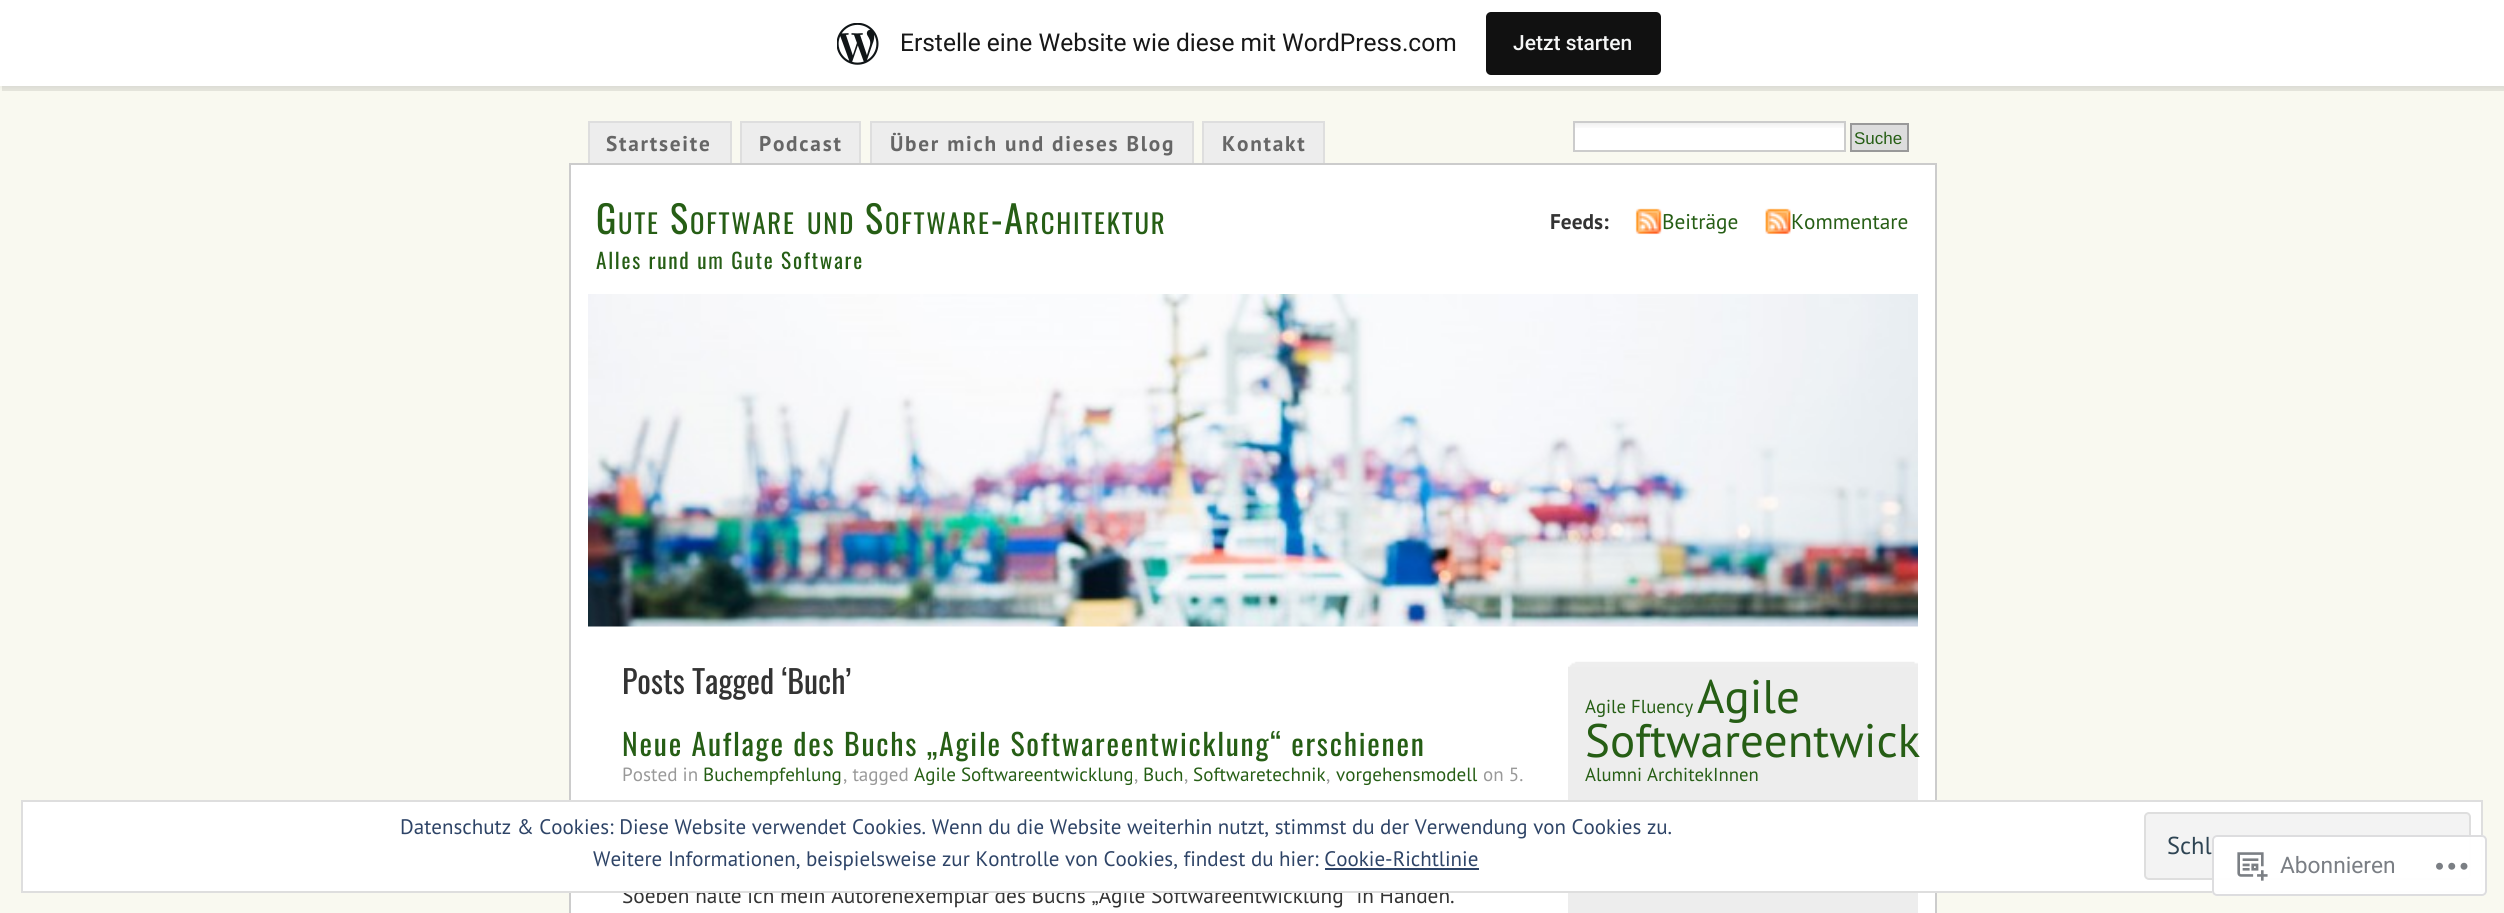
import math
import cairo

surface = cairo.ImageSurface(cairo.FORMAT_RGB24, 2504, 913)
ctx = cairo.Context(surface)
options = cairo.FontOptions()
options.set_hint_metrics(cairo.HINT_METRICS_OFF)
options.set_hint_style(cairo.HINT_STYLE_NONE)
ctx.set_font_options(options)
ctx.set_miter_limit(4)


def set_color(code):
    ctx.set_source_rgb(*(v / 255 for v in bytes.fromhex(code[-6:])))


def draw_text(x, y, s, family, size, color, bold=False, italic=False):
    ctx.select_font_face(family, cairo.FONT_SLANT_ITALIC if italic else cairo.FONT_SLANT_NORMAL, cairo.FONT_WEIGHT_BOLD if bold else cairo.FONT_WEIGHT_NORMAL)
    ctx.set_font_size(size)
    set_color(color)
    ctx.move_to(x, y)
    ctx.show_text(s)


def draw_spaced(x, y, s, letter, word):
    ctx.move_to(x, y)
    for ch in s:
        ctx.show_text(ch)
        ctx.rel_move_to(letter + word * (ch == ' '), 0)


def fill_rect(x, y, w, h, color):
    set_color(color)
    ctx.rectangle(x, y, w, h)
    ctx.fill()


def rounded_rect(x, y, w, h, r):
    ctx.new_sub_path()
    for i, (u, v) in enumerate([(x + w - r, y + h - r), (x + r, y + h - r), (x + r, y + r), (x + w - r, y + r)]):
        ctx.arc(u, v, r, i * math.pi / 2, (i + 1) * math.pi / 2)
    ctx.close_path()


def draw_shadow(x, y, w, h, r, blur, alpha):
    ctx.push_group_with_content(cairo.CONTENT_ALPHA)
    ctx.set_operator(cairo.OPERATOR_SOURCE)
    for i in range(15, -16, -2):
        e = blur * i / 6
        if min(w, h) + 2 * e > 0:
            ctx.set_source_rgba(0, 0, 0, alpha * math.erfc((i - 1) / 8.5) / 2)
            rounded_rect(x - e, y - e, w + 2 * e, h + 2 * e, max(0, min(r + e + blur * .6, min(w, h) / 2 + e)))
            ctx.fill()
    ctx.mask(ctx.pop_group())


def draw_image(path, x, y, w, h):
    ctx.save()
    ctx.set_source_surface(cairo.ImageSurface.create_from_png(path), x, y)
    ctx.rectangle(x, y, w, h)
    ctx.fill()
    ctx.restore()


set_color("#f9f9f0")
ctx.paint()
set_color("#000000")
draw_shadow(0, 2, 2504, 86, 0, 2, 0.05)
ctx.set_source_rgba(0, 0, 0, 0.08)
ctx.new_path()
ctx.move_to(2, 86)
ctx.line_to(2, 91)
ctx.line_to(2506, 91)
ctx.line_to(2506, 5)
ctx.line_to(2504, 5)
ctx.line_to(2504, 86)
ctx.close_path()
ctx.fill()
fill_rect(0, 0, 2504, 86, "#ffffff")
draw_image("assets/img1.png", 837, 23, 42, 42)
draw_text(900, 51, "Erstelle eine Website wie diese mit WordPress.com", "Roboto", 24.5, "#171717")
set_color("#111111")
rounded_rect(1486, 12, 175, 63, 5)
ctx.fill()
draw_text(1513, 50, "Jetzt starten", "Roboto Medium", 21, "#f6f7f7")
fill_rect(590, 123, 140, 40, "#ededed")
fill_rect(588, 121, 144, 2, "#dedede")
fill_rect(730, 121, 2, 42, "#dedede")
fill_rect(588, 121, 2, 42, "#dedede")
ctx.select_font_face("PT Sans", cairo.FONT_SLANT_NORMAL, cairo.FONT_WEIGHT_BOLD)
ctx.set_font_size(21.3)
set_color("#666666")
draw_spaced(606, 151, "Startseite", 1.75, 0)
fill_rect(742, 123, 117, 40, "#ededed")
fill_rect(740, 121, 121, 2, "#dedede")
fill_rect(859, 121, 2, 42, "#dedede")
fill_rect(740, 121, 2, 42, "#dedede")
set_color("#666666")
draw_spaced(759, 151, "Podcast", 1.75, 0)
fill_rect(872, 123, 320, 40, "#ededed")
fill_rect(870, 121, 324, 2, "#dedede")
fill_rect(1192, 121, 2, 42, "#dedede")
fill_rect(870, 121, 2, 42, "#dedede")
set_color("#666666")
draw_spaced(890, 151, "Über mich und dieses Blog", 1.75, 0)
fill_rect(1204, 123, 119, 40, "#ededed")
fill_rect(1202, 121, 123, 2, "#dedede")
fill_rect(1323, 121, 2, 42, "#dedede")
fill_rect(1202, 121, 2, 42, "#dedede")
set_color("#666666")
draw_spaced(1222, 151, "Kontakt", 1.75, 0)
fill_rect(1575, 128, 269, 22, "#ffffff")
draw_image("assets/img2.png", 1575, 123, 269, 5)
ctx.rectangle(1574, 122, 271, 29)
set_color("#cccccc")
ctx.stroke()
set_color("#dddddd")
ctx.rectangle(1851, 124, 57, 27)
ctx.fill_preserve()
set_color("#999999")
ctx.stroke()
draw_text(1854, 144, "Suche", "Liberation Sans", 17, "#265e15")
set_color("#ffffff")
ctx.rectangle(570, 164, 1366, 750)
ctx.fill_preserve()
set_color("#cccccc")
ctx.stroke()
ctx.select_font_face("Oswald")
ctx.set_font_size(38)
set_color("#265e15")
draw_spaced(596, 234, "G", 1.75, 0)
ctx.set_font_size(26.75)
draw_spaced(618, 234, "UTE", 1.75, 0)
ctx.set_font_size(38)
draw_spaced(670, 234, "S", 1.75, 0)
ctx.set_font_size(26.75)
draw_spaced(690, 234, "OFTWARE", 1.75, 0)
draw_spaced(807, 234, "UND", 1.75, 0)
ctx.set_font_size(38)
draw_spaced(865, 234, "S", 1.75, 0)
ctx.set_font_size(26.75)
draw_spaced(885, 234, "OFTWARE", 1.75, 0)
ctx.set_font_size(38)
draw_spaced(991, 234, "-A", 1.75, 0)
ctx.set_font_size(26.75)
draw_spaced(1025, 234, "RCHITEKTUR", 1.75, 0)
ctx.set_font_size(21.3)
draw_spaced(596, 269, "Alles rund um Gute Software", 1.75, 0)
draw_text(1550, 229, "Feeds:", "PT Sans", 21.3, "#333333", bold=True)
draw_image("assets/img3.png", 1635, 208, 27, 27)
draw_text(1662, 229, "Beiträge", "PT Sans", 21.3, "#265e15")
draw_image("assets/img4.png", 1765, 208, 26, 27)
draw_text(1791, 229, "Kommentare", "PT Sans", 21.3, "#265e15")
draw_image("assets/img5.png", 588, 294, 1330, 333)
draw_text(622, 694, "Posts Tagged ‘Buch’", "Oswald", 32, "#333333")
ctx.set_font_size(29.8)
set_color("#265e15")
draw_spaced(622, 756, "Neue Auflage des Buchs „Agile Softwareentwicklung“ erschienen", 1.75, 0)
draw_text(622, 781, "Posted in", "PT Sans", 19.1, "#999999")
draw_text(703, 781, "Buchempfehlung", "PT Sans", 19.1, "#265e15")
draw_text(843, 781, ", tagged", "PT Sans", 19.1, "#999999")
draw_text(914, 781, "Agile Softwareentwicklung", "PT Sans", 19.1, "#265e15")
draw_text(1134, 781, ",", "PT Sans", 19.1, "#999999")
draw_text(1143, 781, "Buch", "PT Sans", 19.1, "#265e15")
draw_text(1184, 781, ",", "PT Sans", 19.1, "#999999")
draw_text(1193, 781, "Softwaretechnik", "PT Sans", 19.1, "#265e15")
draw_text(1326, 781, ",", "PT Sans", 19.1, "#999999")
draw_text(1336, 781, "vorgehensmodell", "PT Sans", 19.1, "#265e15")
draw_text(1483, 781, "on 5.", "PT Sans", 19.1, "#999999")
draw_text(622, 903, "Soeben halte ich mein Autorenexemplar des Buchs „Agile Softwareentwicklung“ in Händen.", "PT Sans", 21.3, "#333333")
fill_rect(1568, 667, 350, 246, "#ededed")
draw_image("assets/img6.png", 1568, 661, 350, 6)
draw_text(1585, 713, "Agile Fluency", "PT Sans", 18.75, "#265e15")
draw_text(1697, 713, "Agile", "PT Sans", 47, "#265e15")
draw_text(1585, 757, "Softwareentwick", "PT Sans", 47, "#265e15")
draw_text(1585, 781, "Alumni ArchitekInnen", "PT Sans", 18.75, "#265e15")
set_color("#ffffff")
ctx.rectangle(22, 801, 2460, 91)
ctx.fill_preserve()
set_color("#dedede")
ctx.stroke()
draw_text(400, 834, "Datenschutz & Cookies: Diese Website verwendet Cookies. Wenn du die Website weiterhin nutzt, stimmst du der Verwendung von Cookies zu.", "PT Sans", 21, "#2e4467")
set_color("#f3f3f3")
rounded_rect(2145, 813, 325, 66, 4)
ctx.fill_preserve()
set_color("#dedede")
ctx.stroke()
draw_text(2167, 854, "Schl", "PT Sans", 24.5, "#2e4453")
draw_text(593, 866, "Weitere Informationen, beispielsweise zur Kontrolle von Cookies, findest du hier: Cookie-Richtlinie", "PT Sans", 21, "#2e4467")
fill_rect(1325, 868, 154, 2, "#2e4467")
ctx.set_source_rgba(1, 1, 1, 0.98)
rounded_rect(2212, 835, 275, 61, 5)
ctx.fill()
rounded_rect(2213, 836, 273, 59, 4)
ctx.set_source_rgba(0.863, 0.863, 0.871, 0.98)
ctx.stroke()
draw_image("assets/img7.png", 2237, 852, 31, 29)
draw_text(2280, 873, "Abonnieren", "Roboto", 22.75, "#7a7e84")
draw_image("assets/img8.png", 2436, 862, 32, 8)
surface.write_to_png("output.png")
